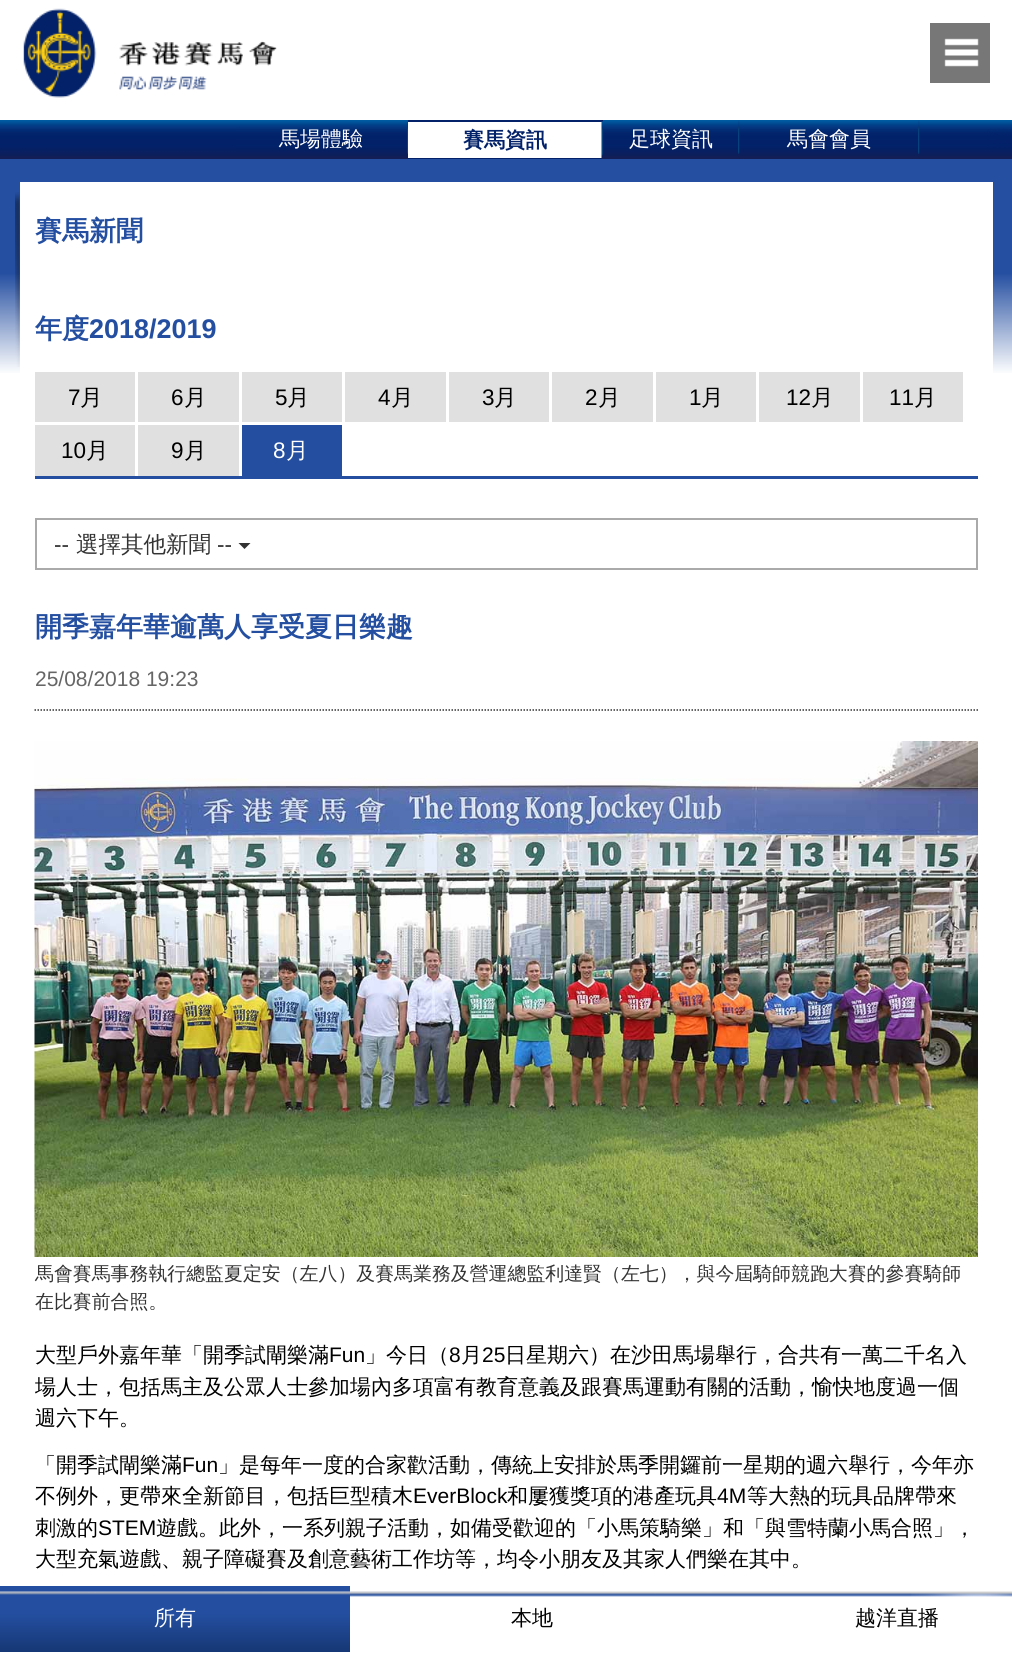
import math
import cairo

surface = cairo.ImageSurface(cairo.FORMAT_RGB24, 1012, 1660)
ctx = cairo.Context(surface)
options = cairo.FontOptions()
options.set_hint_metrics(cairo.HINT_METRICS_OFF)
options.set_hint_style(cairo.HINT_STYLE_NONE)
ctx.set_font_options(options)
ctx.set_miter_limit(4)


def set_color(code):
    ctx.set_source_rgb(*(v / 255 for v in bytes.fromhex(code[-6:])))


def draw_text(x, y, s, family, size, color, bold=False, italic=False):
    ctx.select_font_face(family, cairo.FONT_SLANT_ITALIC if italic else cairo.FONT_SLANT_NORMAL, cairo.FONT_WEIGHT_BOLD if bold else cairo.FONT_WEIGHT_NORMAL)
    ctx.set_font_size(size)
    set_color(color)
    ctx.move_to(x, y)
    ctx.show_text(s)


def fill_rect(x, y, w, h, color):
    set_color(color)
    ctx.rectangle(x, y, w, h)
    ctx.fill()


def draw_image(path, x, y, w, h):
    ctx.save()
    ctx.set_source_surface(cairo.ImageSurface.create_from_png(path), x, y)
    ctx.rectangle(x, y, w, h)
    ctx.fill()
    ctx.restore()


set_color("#ffffff")
ctx.paint()
draw_image("assets/img1.png", 0, 159, 1012, 214)
draw_image("assets/img2.png", 23, 8, 254, 90)
fill_rect(930, 23, 60, 60, "#777777")
draw_image("assets/img3.png", 944, 38, 35, 29)
draw_image("assets/img4.png", 0, 120, 920, 39)
draw_image("assets/img5.png", 236, 120, 172, 39)
draw_text(279, 146, "馬場體驗", "WenQuanYi Zen Hei Medium", 21, "#ffffff")
draw_image("assets/img6.png", 407, 121, 1, 33)
fill_rect(408, 122, 194, 36, "#ffffff")
fill_rect(408, 120, 195, 2, "#022169")
fill_rect(408, 158, 195, 1, "#022169")
draw_text(463, 147, "賽馬資訊", "WenQuanYi Zen Hei", 21, "#022169", bold=True)
draw_image("assets/img7.png", 601, 121, 2, 38)
draw_image("assets/img8.png", 603, 120, 137, 39)
draw_text(629, 146, "足球資訊", "WenQuanYi Zen Hei Medium", 21, "#ffffff")
draw_image("assets/img9.png", 738, 120, 2, 39)
draw_image("assets/img10.png", 739, 120, 181, 39)
draw_text(787, 146, "馬會會員", "WenQuanYi Zen Hei Medium", 21, "#ffffff")
draw_image("assets/img9.png", 918, 120, 2, 39)
draw_image("assets/img11.png", 919, 120, 93, 39)
draw_image("assets/img12.png", 987, 128, 25, 21)
draw_image("assets/img13.png", 15, 192, 5, 175)
fill_rect(20, 182, 973, 191, "#ffffff")
draw_text(35, 240, "賽馬新聞", "WenQuanYi Zen Hei", 27, "#244fa1", bold=True)
draw_text(35, 338, "年度", "WenQuanYi Zen Hei", 27, "#244fa1", bold=True)
draw_text(89, 338, "2018/2019", "Liberation Sans", 27, "#244fa1", bold=True)
fill_rect(35, 476, 943, 3, "#244fa1")
fill_rect(35, 372, 100, 50, "#e0e0e0")
draw_text(68, 405, "7", "Liberation Sans", 22.5, "#000000")
draw_text(80, 405, "月", "WenQuanYi Zen Hei Medium", 22.5, "#000000")
fill_rect(138, 372, 101, 50, "#e0e0e0")
draw_text(171, 405, "6", "Liberation Sans", 22.5, "#000000")
draw_text(184, 405, "月", "WenQuanYi Zen Hei Medium", 22.5, "#000000")
fill_rect(242, 372, 100, 50, "#e0e0e0")
draw_text(275, 405, "5", "Liberation Sans", 22.5, "#000000")
draw_text(287, 405, "月", "WenQuanYi Zen Hei Medium", 22.5, "#000000")
fill_rect(345, 372, 101, 50, "#e0e0e0")
draw_text(378, 405, "4", "Liberation Sans", 22.5, "#000000")
draw_text(391, 405, "月", "WenQuanYi Zen Hei Medium", 22.5, "#000000")
fill_rect(449, 372, 100, 50, "#e0e0e0")
draw_text(482, 405, "3", "Liberation Sans", 22.5, "#000000")
draw_text(494, 405, "月", "WenQuanYi Zen Hei Medium", 22.5, "#000000")
fill_rect(552, 372, 101, 50, "#e0e0e0")
draw_text(585, 405, "2", "Liberation Sans", 22.5, "#000000")
draw_text(598, 405, "月", "WenQuanYi Zen Hei Medium", 22.5, "#000000")
fill_rect(656, 372, 100, 50, "#e0e0e0")
draw_text(689, 405, "1", "Liberation Sans", 22.5, "#000000")
draw_text(701, 405, "月", "WenQuanYi Zen Hei Medium", 22.5, "#000000")
fill_rect(759, 372, 101, 50, "#e0e0e0")
draw_text(786, 405, "12", "Liberation Sans", 22.5, "#000000")
draw_text(811, 405, "月", "WenQuanYi Zen Hei Medium", 22.5, "#000000")
fill_rect(863, 372, 100, 50, "#e0e0e0")
draw_text(889, 405, "11", "Liberation Sans", 22.5, "#000000")
draw_text(914, 405, "月", "WenQuanYi Zen Hei Medium", 22.5, "#000000")
fill_rect(35, 425, 100, 51, "#e0e0e0")
draw_text(61, 458, "10", "Liberation Sans", 22.5, "#000000")
draw_text(86, 458, "月", "WenQuanYi Zen Hei Medium", 22.5, "#000000")
fill_rect(138, 425, 101, 51, "#e0e0e0")
draw_text(171, 458, "9", "Liberation Sans", 22.5, "#000000")
draw_text(184, 458, "月", "WenQuanYi Zen Hei Medium", 22.5, "#000000")
fill_rect(242, 425, 100, 51, "#244fa1")
draw_text(273, 458, "8", "Liberation Sans", 22.5, "#ffffff")
draw_text(286, 458, "月", "WenQuanYi Zen Hei Medium", 22.5, "#ffffff")
ctx.rectangle(36, 519, 941, 50)
set_color("#aaaaaa")
ctx.stroke()
draw_text(54, 552, "--", "Liberation Sans", 22.5, "#333333")
draw_text(76, 552, "選擇其他新聞", "WenQuanYi Zen Hei Medium", 22.5, "#333333")
draw_text(217, 552, "--", "Liberation Sans", 22.5, "#333333")
ctx.new_path()
ctx.move_to(238.5, 543)
ctx.line_to(250.5, 543)
ctx.line_to(244.5, 549)
ctx.close_path()
ctx.fill()
ctx.new_path()
ctx.move_to(34.5, 710)
ctx.line_to(978, 710)
ctx.set_line_width(1.5)
ctx.set_dash([1.5, 1.5])
ctx.stroke()
draw_text(35, 636, "開季嘉年華逾萬人享受夏日樂趣", "WenQuanYi Zen Hei", 27, "#244fa1", bold=True)
draw_text(35, 686, "25/08/2018 19:23", "Liberation Sans", 21, "#666666")
draw_image("assets/img14.png", 34, 741, 944, 516)
draw_text(35, 1280, "馬會賽馬事務執行總監夏定安（左八）及賽馬業務及營運總監利達賢（左七），與今屆騎師競跑大賽的參賽騎師", "WenQuanYi Zen Hei Medium", 18.9, "#333333")
draw_text(35, 1308, "在比賽前合照。", "WenQuanYi Zen Hei Medium", 18.9, "#333333")
draw_text(35, 1362, "大型戶外嘉年華「開季試閘樂滿", "WenQuanYi Zen Hei Medium", 21, "#000000")
draw_text(329, 1362, "Fun", "Liberation Sans", 21, "#000000")
draw_text(365, 1362, "」今日（", "WenQuanYi Zen Hei Medium", 21, "#000000")
draw_text(449, 1362, "8", "Liberation Sans", 21, "#000000")
draw_text(461, 1362, "月", "WenQuanYi Zen Hei Medium", 21, "#000000")
draw_text(482, 1362, "25", "Liberation Sans", 21, "#000000")
draw_text(505, 1362, "日星期六）在沙田馬場舉行，合共有一萬二千名入", "WenQuanYi Zen Hei Medium", 21, "#000000")
draw_text(35, 1394, "場人士，包括馬主及公眾人士參加場內多項富有教育意義及跟賽馬運動有關的活動，愉快地度過一個", "WenQuanYi Zen Hei Medium", 21, "#000000")
draw_text(35, 1425, "週六下午。", "WenQuanYi Zen Hei Medium", 21, "#000000")
draw_text(35, 1472, "「開季試閘樂滿", "WenQuanYi Zen Hei Medium", 21, "#000000")
draw_text(182, 1472, "Fun", "Liberation Sans", 21, "#000000")
draw_text(218, 1472, "」是每年一度的合家歡活動，傳統上安排於馬季開鑼前一星期的週六舉行，今年亦", "WenQuanYi Zen Hei Medium", 21, "#000000")
draw_text(35, 1503, "不例外，更帶來全新節目，包括巨型積木", "WenQuanYi Zen Hei Medium", 21, "#000000")
draw_text(413, 1503, "EverBlock", "Liberation Sans", 21, "#000000")
draw_text(507, 1503, "和屢獲獎項的港產玩具", "WenQuanYi Zen Hei Medium", 21, "#000000")
draw_text(717, 1503, "4M", "Liberation Sans", 21, "#000000")
draw_text(747, 1503, "等大熱的玩具品牌帶來", "WenQuanYi Zen Hei Medium", 21, "#000000")
draw_text(35, 1535, "刺激的", "WenQuanYi Zen Hei Medium", 21, "#000000")
draw_text(98, 1535, "STEM", "Liberation Sans", 21, "#000000")
draw_text(156, 1535, "遊戲。此外，一系列親子活動，如備受歡迎的「小馬策騎樂」和「與雪特蘭小馬合照」，", "WenQuanYi Zen Hei Medium", 21, "#000000")
draw_text(35, 1566, "大型充氣遊戲、親子障礙賽及創意藝術工作坊等，均令小朋友及其家人們樂在其中。", "WenQuanYi Zen Hei Medium", 21, "#000000")
gradient = cairo.LinearGradient(175, 1586, 175, 1652)
gradient.add_color_stop_rgba(0, 0.141, 0.31, 0.631, 1)
gradient.add_color_stop_rgba(0.41, 0.141, 0.31, 0.631, 1)
gradient.add_color_stop_rgba(1, 0.086, 0.216, 0.455, 1)
ctx.set_source(gradient)
ctx.rectangle(0, 1586, 350, 66)
ctx.fill()
draw_image("assets/img15.png", 0, 1591, 1012, 6)
draw_text(154, 1625, "所有", "WenQuanYi Zen Hei Medium", 21, "#ffffff")
draw_text(511, 1625, "本地", "WenQuanYi Zen Hei Medium", 21, "#000000")
draw_text(855, 1625, "越洋直播", "WenQuanYi Zen Hei Medium", 21, "#000000")
surface.write_to_png("output.png")
